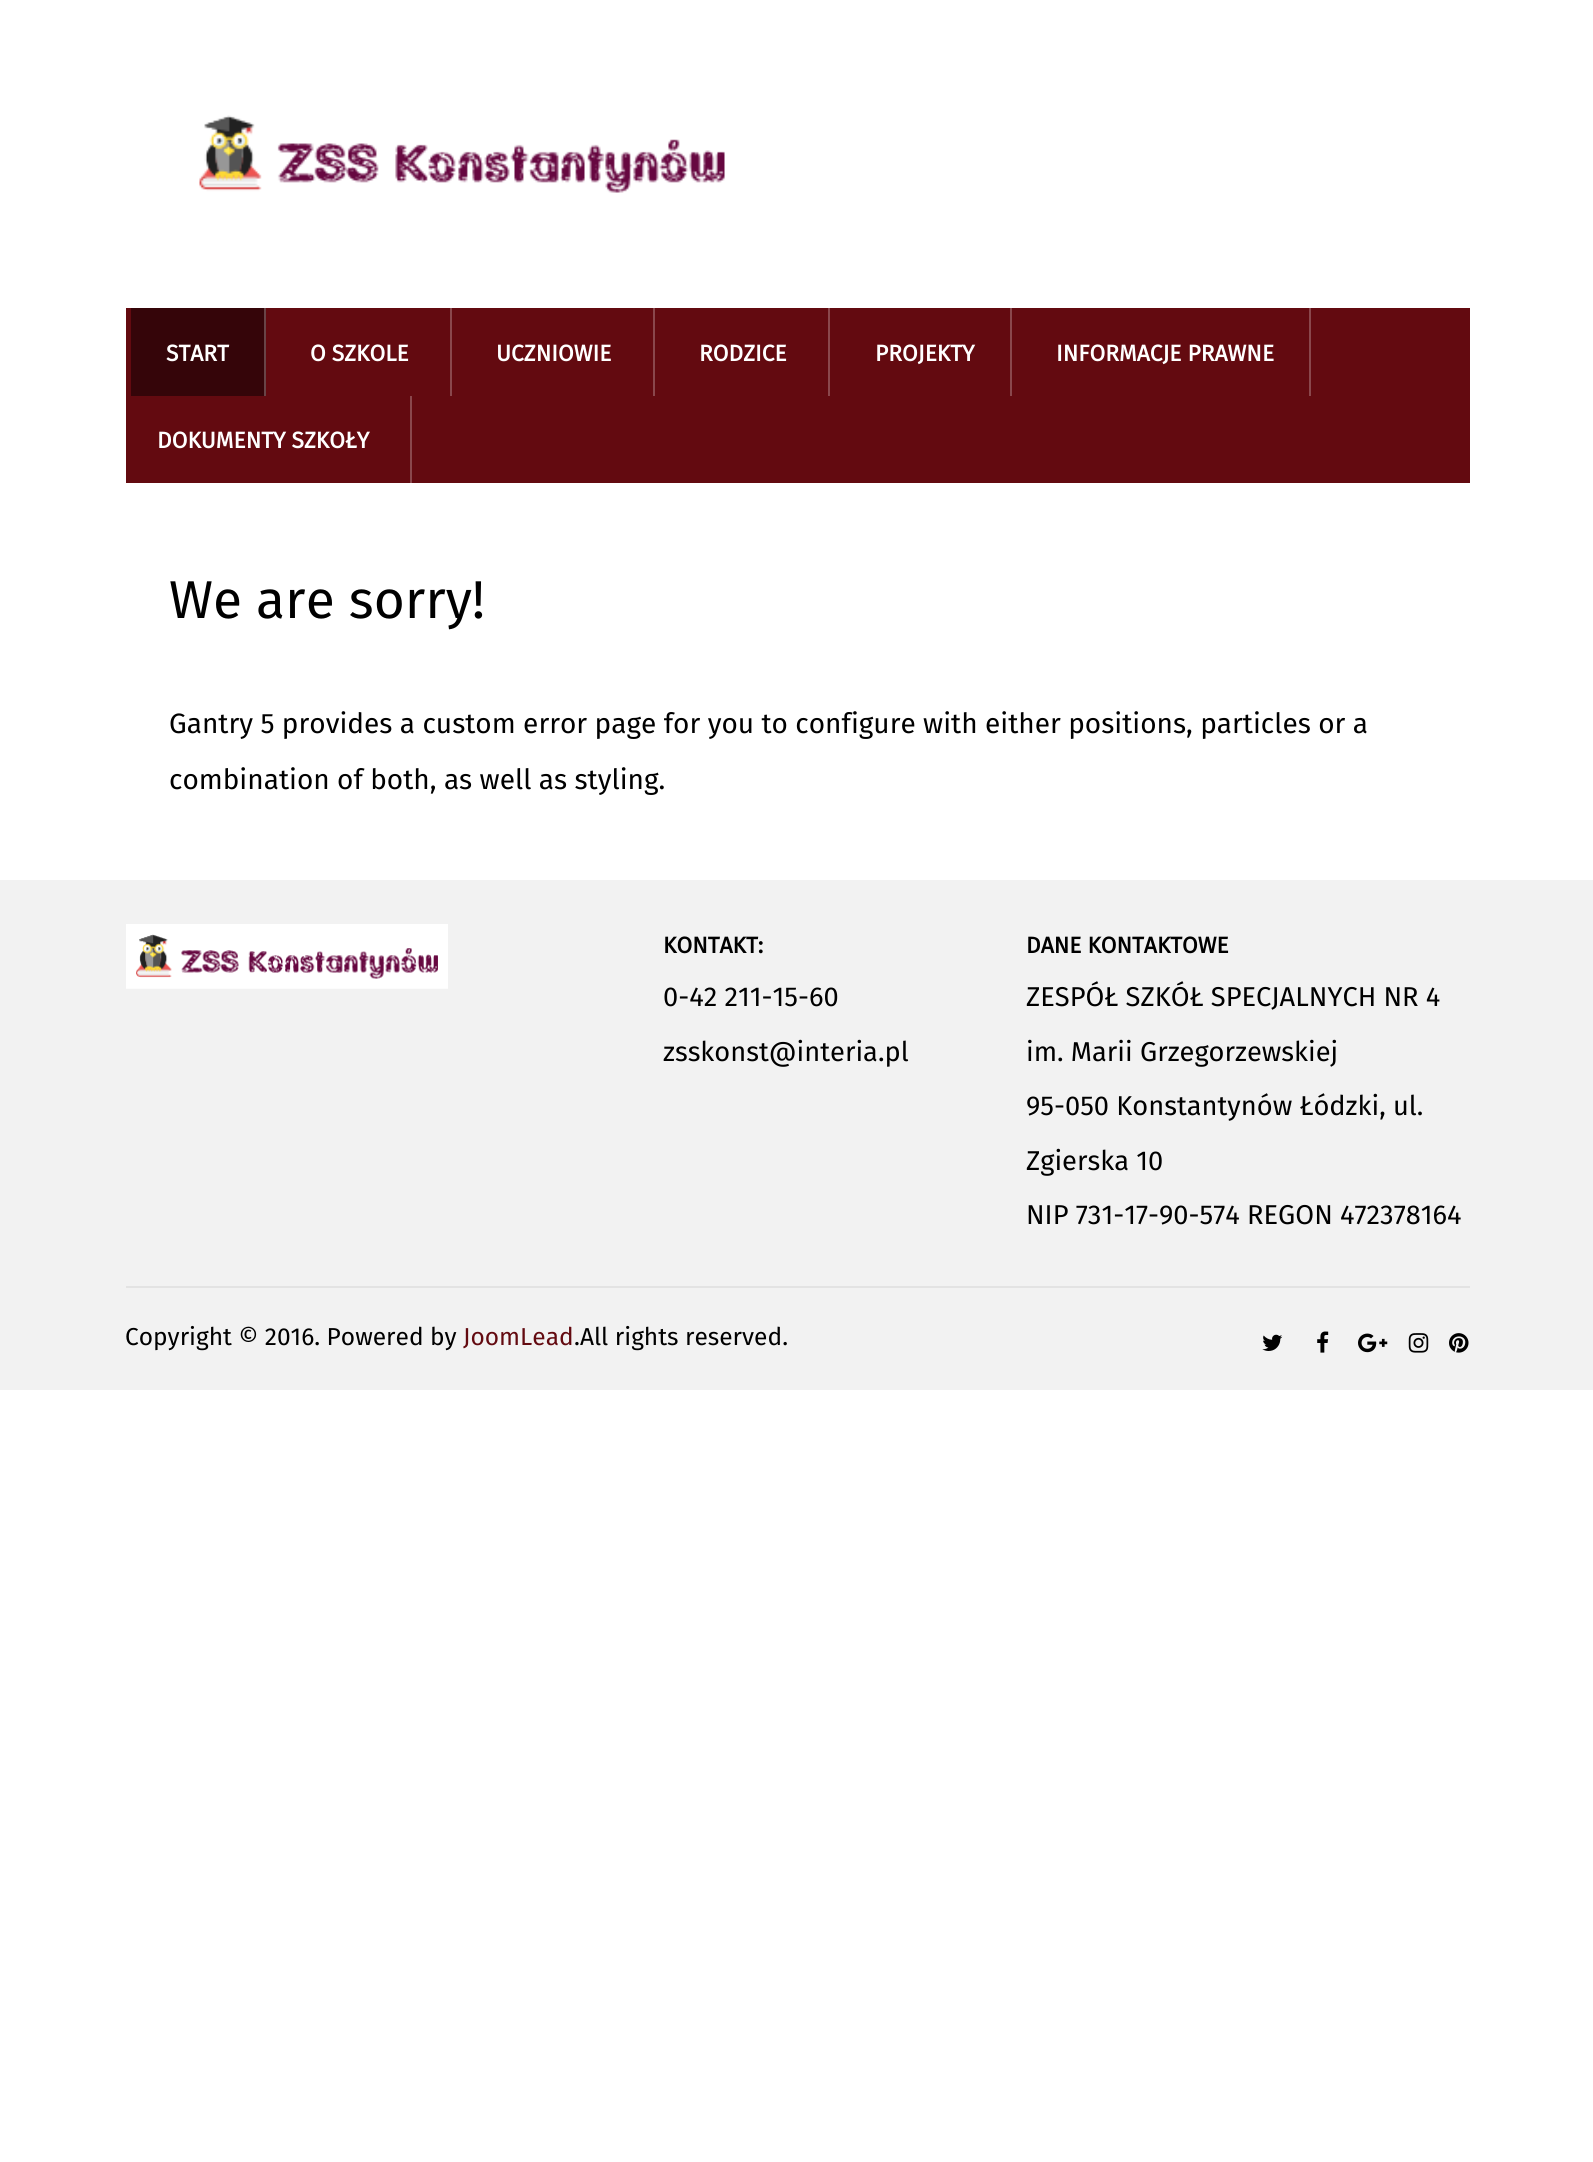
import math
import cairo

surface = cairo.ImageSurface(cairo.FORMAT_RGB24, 1593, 2162)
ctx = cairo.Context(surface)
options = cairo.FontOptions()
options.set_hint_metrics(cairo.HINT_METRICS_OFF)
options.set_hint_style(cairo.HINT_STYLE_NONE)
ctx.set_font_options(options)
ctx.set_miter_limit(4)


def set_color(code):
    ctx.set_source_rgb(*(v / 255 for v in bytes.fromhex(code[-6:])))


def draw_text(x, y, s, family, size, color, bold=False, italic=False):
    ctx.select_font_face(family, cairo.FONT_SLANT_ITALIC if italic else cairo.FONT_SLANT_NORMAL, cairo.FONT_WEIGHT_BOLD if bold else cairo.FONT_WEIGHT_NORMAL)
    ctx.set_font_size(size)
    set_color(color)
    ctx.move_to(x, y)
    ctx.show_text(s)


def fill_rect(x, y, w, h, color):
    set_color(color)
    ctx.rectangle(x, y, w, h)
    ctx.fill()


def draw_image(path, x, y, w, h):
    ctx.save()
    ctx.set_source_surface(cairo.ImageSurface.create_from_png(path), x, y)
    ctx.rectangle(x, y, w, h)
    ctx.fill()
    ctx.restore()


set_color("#ffffff")
ctx.paint()
draw_image("assets/img1.png", 199, 115, 526, 78)
fill_rect(126, 308, 1344, 175, "#630a10")
fill_rect(131, 308, 133, 88, "#350509")
fill_rect(264, 308, 2, 88, "#684447")
draw_text(166, 361, "START", "Fira Sans", 22.75, "#ffffff", bold=True)
fill_rect(450, 308, 2, 88, "#8a474c")
draw_text(310, 361, "O SZKOLE", "Fira Sans", 22.75, "#ffffff", bold=True)
fill_rect(653, 308, 2, 88, "#8a474c")
draw_text(496, 361, "UCZNIOWIE", "Fira Sans", 22.75, "#ffffff", bold=True)
fill_rect(828, 308, 2, 88, "#8a474c")
draw_text(699, 361, "RODZICE", "Fira Sans", 22.75, "#ffffff", bold=True)
fill_rect(1010, 308, 2, 88, "#8a474c")
draw_text(875, 361, "PROJEKTY", "Fira Sans", 22.75, "#ffffff", bold=True)
fill_rect(1309, 308, 2, 88, "#8a474c")
draw_text(1056, 361, "INFORMACJE PRAWNE", "Fira Sans", 22.75, "#ffffff", bold=True)
fill_rect(410, 396, 2, 87, "#8a474c")
draw_text(157, 448, "DOKUMENTY SZKOŁY", "Fira Sans", 22.75, "#ffffff", bold=True)
draw_text(169, 618, "We are sorry!", "Fira Sans", 53.25, "#000000")
draw_text(169, 733, "Gantry 5 provides a custom error page for you to configure with either positions, particles or a", "Fira Sans", 28, "#000000")
draw_text(169, 789, "combination of both, as well as styling.", "Fira Sans", 28, "#000000")
fill_rect(0, 880, 1593, 510, "#f2f2f2")
draw_image("assets/img2.png", 126, 924, 322, 65)
draw_text(663, 953, "KONTAKT:", "Fira Sans", 22.75, "#000000", bold=True)
draw_text(663, 1006, "0-42 211-15-60", "Fira Sans", 27.25, "#000000")
draw_text(663, 1061, "zsskonst@interia.pl", "Fira Sans", 27.25, "#000000")
draw_text(1026, 953, "DANE KONTAKTOWE", "Fira Sans", 22.75, "#000000", bold=True)
draw_text(1026, 1006, "ZESPÓŁ SZKÓŁ SPECJALNYCH NR 4", "Fira Sans", 27.25, "#000000")
draw_text(1026, 1061, "im. Marii Grzegorzewskiej", "Fira Sans", 27.25, "#000000")
draw_text(1026, 1115, "95-050 Konstantynów Łódzki, ul.", "Fira Sans", 27.25, "#000000")
draw_text(1026, 1170, "Zgierska 10", "Fira Sans", 27.25, "#000000")
draw_text(1026, 1224, "NIP 731-17-90-574 REGON 472378164", "Fira Sans", 27.25, "#000000")
fill_rect(126, 1286, 1344, 2, "#e3e3e3")
draw_text(125, 1345, "Copyright © 2016. Powered by", "Fira Sans", 24.5, "#000000")
draw_text(463, 1345, "JoomLead", "Fira Sans", 24.5, "#630a10")
draw_text(574, 1345, ".All rights reserved.", "Fira Sans", 24.5, "#000000")
draw_image("assets/img3.png", 1262, 1334, 21, 17)
draw_image("assets/img4.png", 1317, 1331, 12, 22)
draw_image("assets/img5.png", 1358, 1333, 30, 20)
draw_image("assets/img6.png", 1408, 1333, 21, 20)
draw_image("assets/img7.png", 1449, 1333, 20, 20)
surface.write_to_png("output.png")
